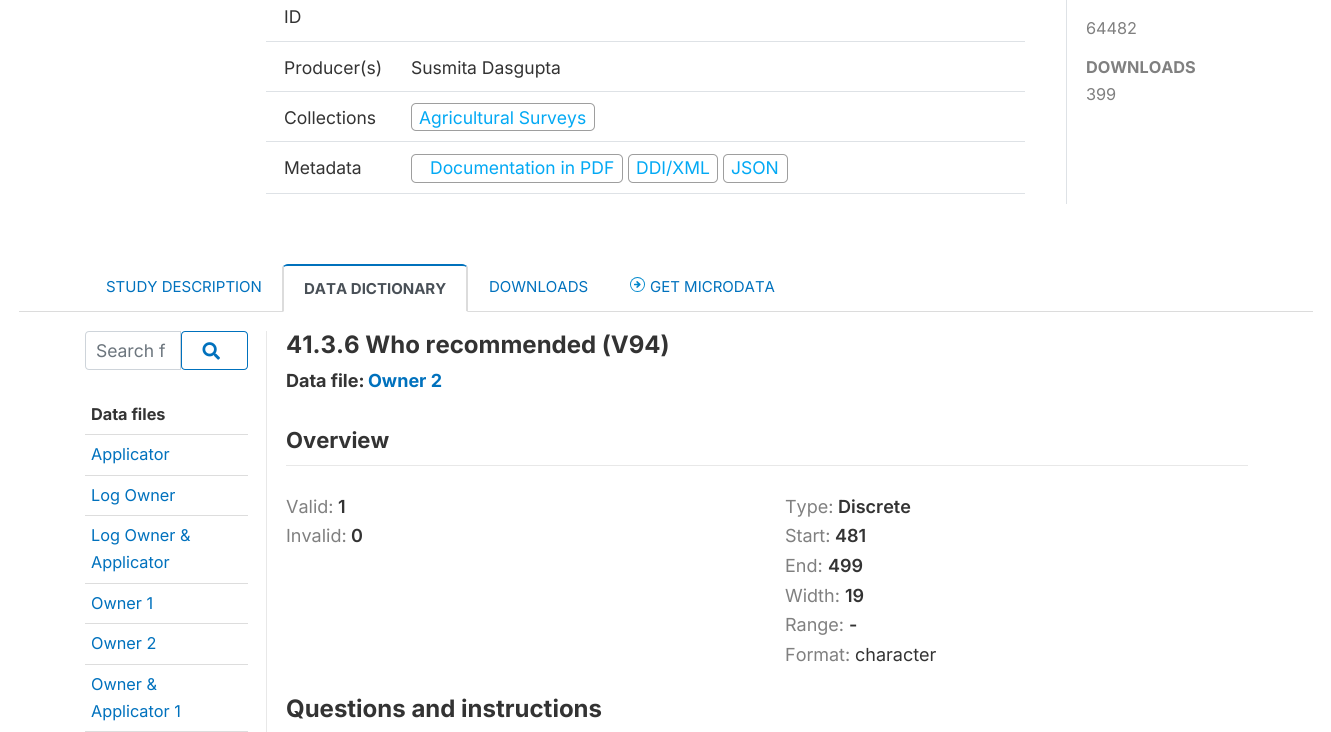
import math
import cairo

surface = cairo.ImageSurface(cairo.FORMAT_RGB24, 1331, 732)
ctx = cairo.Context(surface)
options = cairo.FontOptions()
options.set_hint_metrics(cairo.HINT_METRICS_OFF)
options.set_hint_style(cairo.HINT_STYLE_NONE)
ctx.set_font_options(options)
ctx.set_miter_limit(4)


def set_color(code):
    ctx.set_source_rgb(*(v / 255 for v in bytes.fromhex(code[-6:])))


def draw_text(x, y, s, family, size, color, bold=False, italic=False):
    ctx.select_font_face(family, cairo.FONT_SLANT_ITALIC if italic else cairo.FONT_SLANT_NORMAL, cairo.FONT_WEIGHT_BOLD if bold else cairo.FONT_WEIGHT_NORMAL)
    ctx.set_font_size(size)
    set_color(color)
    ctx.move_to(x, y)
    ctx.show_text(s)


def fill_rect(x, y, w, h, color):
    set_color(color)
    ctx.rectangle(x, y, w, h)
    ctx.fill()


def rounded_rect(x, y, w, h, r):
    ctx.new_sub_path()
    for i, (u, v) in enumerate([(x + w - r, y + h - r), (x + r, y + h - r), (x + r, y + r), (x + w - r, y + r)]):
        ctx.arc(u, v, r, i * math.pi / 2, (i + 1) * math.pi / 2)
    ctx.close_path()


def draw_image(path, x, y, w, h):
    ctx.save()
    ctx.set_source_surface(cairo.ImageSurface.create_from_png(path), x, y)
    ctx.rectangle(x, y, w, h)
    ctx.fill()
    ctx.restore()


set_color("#ffffff")
ctx.paint()
fill_rect(19, 311, 1294, 1, "#dcdcdc")
fill_rect(266, 41, 759, 1, "#dee2e6")
draw_text(284, 23, "ID", "Inter", 17.5, "#333333")
fill_rect(266, 91, 759, 1, "#dee2e6")
draw_text(284, 74, "Producer(s)", "Inter", 17.5, "#333333")
draw_text(411, 74, "Susmita Dasgupta", "Inter", 17.5, "#333333")
fill_rect(266, 141, 759, 1, "#dee2e6")
draw_text(284, 124, "Collections", "Inter", 17.5, "#333333")
rounded_rect(411.5, 103.5, 183, 27, 4.5)
set_color("#9e9e9e")
ctx.set_line_width(1)
ctx.stroke()
draw_text(419, 124, "Agricultural Surveys", "Inter", 17.5, "#03a9f4")
fill_rect(266, 193, 759, 1, "#dee2e6")
draw_text(284, 174, "Metadata", "Inter", 17.5, "#333333")
rounded_rect(411.5, 154.5, 211, 28, 4.5)
set_color("#9e9e9e")
ctx.stroke()
draw_text(430, 174, "Documentation in PDF", "Inter", 17.5, "#03a9f4")
rounded_rect(628.5, 154.5, 89, 28, 4.5)
set_color("#9e9e9e")
ctx.stroke()
draw_text(636, 174, "DDI/XML", "Inter", 17.5, "#03a9f4")
rounded_rect(723.5, 154.5, 64, 28, 4.5)
set_color("#9e9e9e")
ctx.stroke()
draw_text(731, 174, "JSON", "Inter", 17.5, "#03a9f4")
fill_rect(1066, 0, 1, 204, "#dee2e6")
draw_text(1086, 34, "64482", "Inter", 16.25, "#808080")
draw_text(1086, 73, "DOWNLOADS", "Inter", 16.25, "#808080", bold=True)
draw_text(1086, 100, "399", "Inter", 16.25, "#808080")
draw_text(106, 292, "STUDY DESCRIPTION", "Inter", 15, "#0071bd")
fill_rect(283, 311, 185, 1, "#ffffff")
set_color("#0071bc")
ctx.new_path()
ctx.move_to(288, 264)
ctx.curve_to(286, 264, 285, 265, 283, 266)
ctx.line_to(284, 267)
ctx.curve_to(285, 266, 286, 266, 288, 266)
ctx.line_to(462, 266)
ctx.curve_to(464, 266, 465, 266, 466, 267)
ctx.line_to(467, 266)
ctx.curve_to(465, 265, 464, 264, 462, 264)
ctx.close_path()
ctx.fill()
set_color("#dcdcdc")
ctx.new_path()
ctx.move_to(468, 312)
ctx.line_to(466, 311)
ctx.line_to(466, 267)
ctx.line_to(467, 266)
ctx.line_to(468, 267)
ctx.close_path()
ctx.fill()
set_color("#ffffff")
ctx.new_path()
ctx.move_to(467, 312)
ctx.line_to(283, 312)
ctx.line_to(284, 311)
ctx.line_to(466, 311)
ctx.close_path()
ctx.fill()
set_color("#dcdcdc")
ctx.new_path()
ctx.move_to(282, 267)
ctx.line_to(283, 266)
ctx.line_to(284, 267)
ctx.line_to(284, 311)
ctx.line_to(283, 312)
ctx.line_to(282, 312)
ctx.close_path()
ctx.fill()
draw_text(304, 294, "DATA DICTIONARY", "Inter", 15, "#495057", bold=True)
draw_text(489, 292, "DOWNLOADS", "Inter", 15, "#0071bd")
draw_image("assets/img1.png", 630, 277, 15, 15)
draw_text(650, 292, "GET MICRODATA", "Inter", 15, "#0071bd")
ctx.new_path()
ctx.move_to(89, 331.5)
ctx.line_to(180.5, 331.5)
ctx.line_to(180.5, 369.5)
ctx.line_to(89, 369.5)
ctx.curve_to(87, 369.5, 85.5, 368, 85.5, 366)
ctx.line_to(85.5, 335)
ctx.curve_to(85.5, 333, 87, 331.5, 89, 331.5)
ctx.close_path()
set_color("#ced4da")
ctx.stroke()
draw_text(96, 357, "Search f", "Inter", 17.5, "#6c757d")
rounded_rect(181.5, 331.5, 66, 38, 3.5)
set_color("#0071bd")
ctx.stroke()
draw_image("assets/img2.png", 202, 342, 18, 18)
draw_text(91, 420, "Data files", "Inter", 16.25, "#333333", bold=True)
fill_rect(85, 434, 163, 1, "#dddddd")
draw_text(91, 460, "Applicator", "Inter", 16.25, "#0071bd")
fill_rect(85, 475, 163, 1, "#dddddd")
draw_text(91, 501, "Log Owner", "Inter", 16.25, "#0071bd")
fill_rect(85, 515, 163, 1, "#dddddd")
draw_text(91, 541, "Log Owner &", "Inter", 16.25, "#0071bd")
draw_text(91, 568, "Applicator", "Inter", 16.25, "#0071bd")
fill_rect(85, 583, 163, 1, "#dddddd")
draw_text(91, 609, "Owner 1", "Inter", 16.25, "#0071bd")
fill_rect(85, 623, 163, 1, "#dddddd")
draw_text(91, 649, "Owner 2", "Inter", 16.25, "#0071bd")
fill_rect(85, 664, 163, 1, "#dddddd")
draw_text(91, 690, "Owner &", "Inter", 16.25, "#0071bd")
draw_text(91, 717, "Applicator 1", "Inter", 16.25, "#0071bd")
fill_rect(85, 731, 163, 1, "#dddddd")
fill_rect(266, 331, 1, 401, "#e8e8e8")
draw_text(286, 353, "41.3.6 Who recommended (V94)", "Inter", 24, "#333333", bold=True)
draw_text(286, 387, "Data file:", "Inter", 18, "#333333", bold=True)
draw_text(368, 387, "Owner 2", "Inter", 18, "#0071bd", bold=True)
fill_rect(286, 465, 962, 1, "#e8e8e8")
draw_text(286, 448, "Overview", "Inter", 22, "#333333", bold=True)
draw_text(286, 513, "Valid:", "Inter", 18, "#808080")
draw_text(338, 513, "1", "Inter SemiBold", 18, "#333333")
draw_text(286, 542, "Invalid:", "Inter", 18, "#808080")
draw_text(351, 542, "0", "Inter SemiBold", 18, "#333333")
draw_text(785, 513, "Type:", "Inter", 18, "#808080")
draw_text(838, 513, "Discrete", "Inter SemiBold", 18, "#333333")
draw_text(785, 542, "Start:", "Inter", 18, "#808080")
draw_text(835, 542, "481", "Inter SemiBold", 18, "#333333")
draw_text(785, 572, "End:", "Inter", 18, "#808080")
draw_text(828, 572, "499", "Inter SemiBold", 18, "#333333")
draw_text(785, 602, "Width:", "Inter", 18, "#808080")
draw_text(845, 602, "19", "Inter SemiBold", 18, "#333333")
draw_text(785, 631, "Range:", "Inter", 18, "#808080")
draw_text(849, 631, "-", "Inter SemiBold", 18, "#333333")
draw_text(785, 661, "Format:", "Inter", 18, "#808080")
draw_text(855, 661, "character", "Inter", 18, "#333333")
draw_text(286, 717, "Questions and instructions", "Inter", 24, "#333333", bold=True)
surface.write_to_png("output.png")
